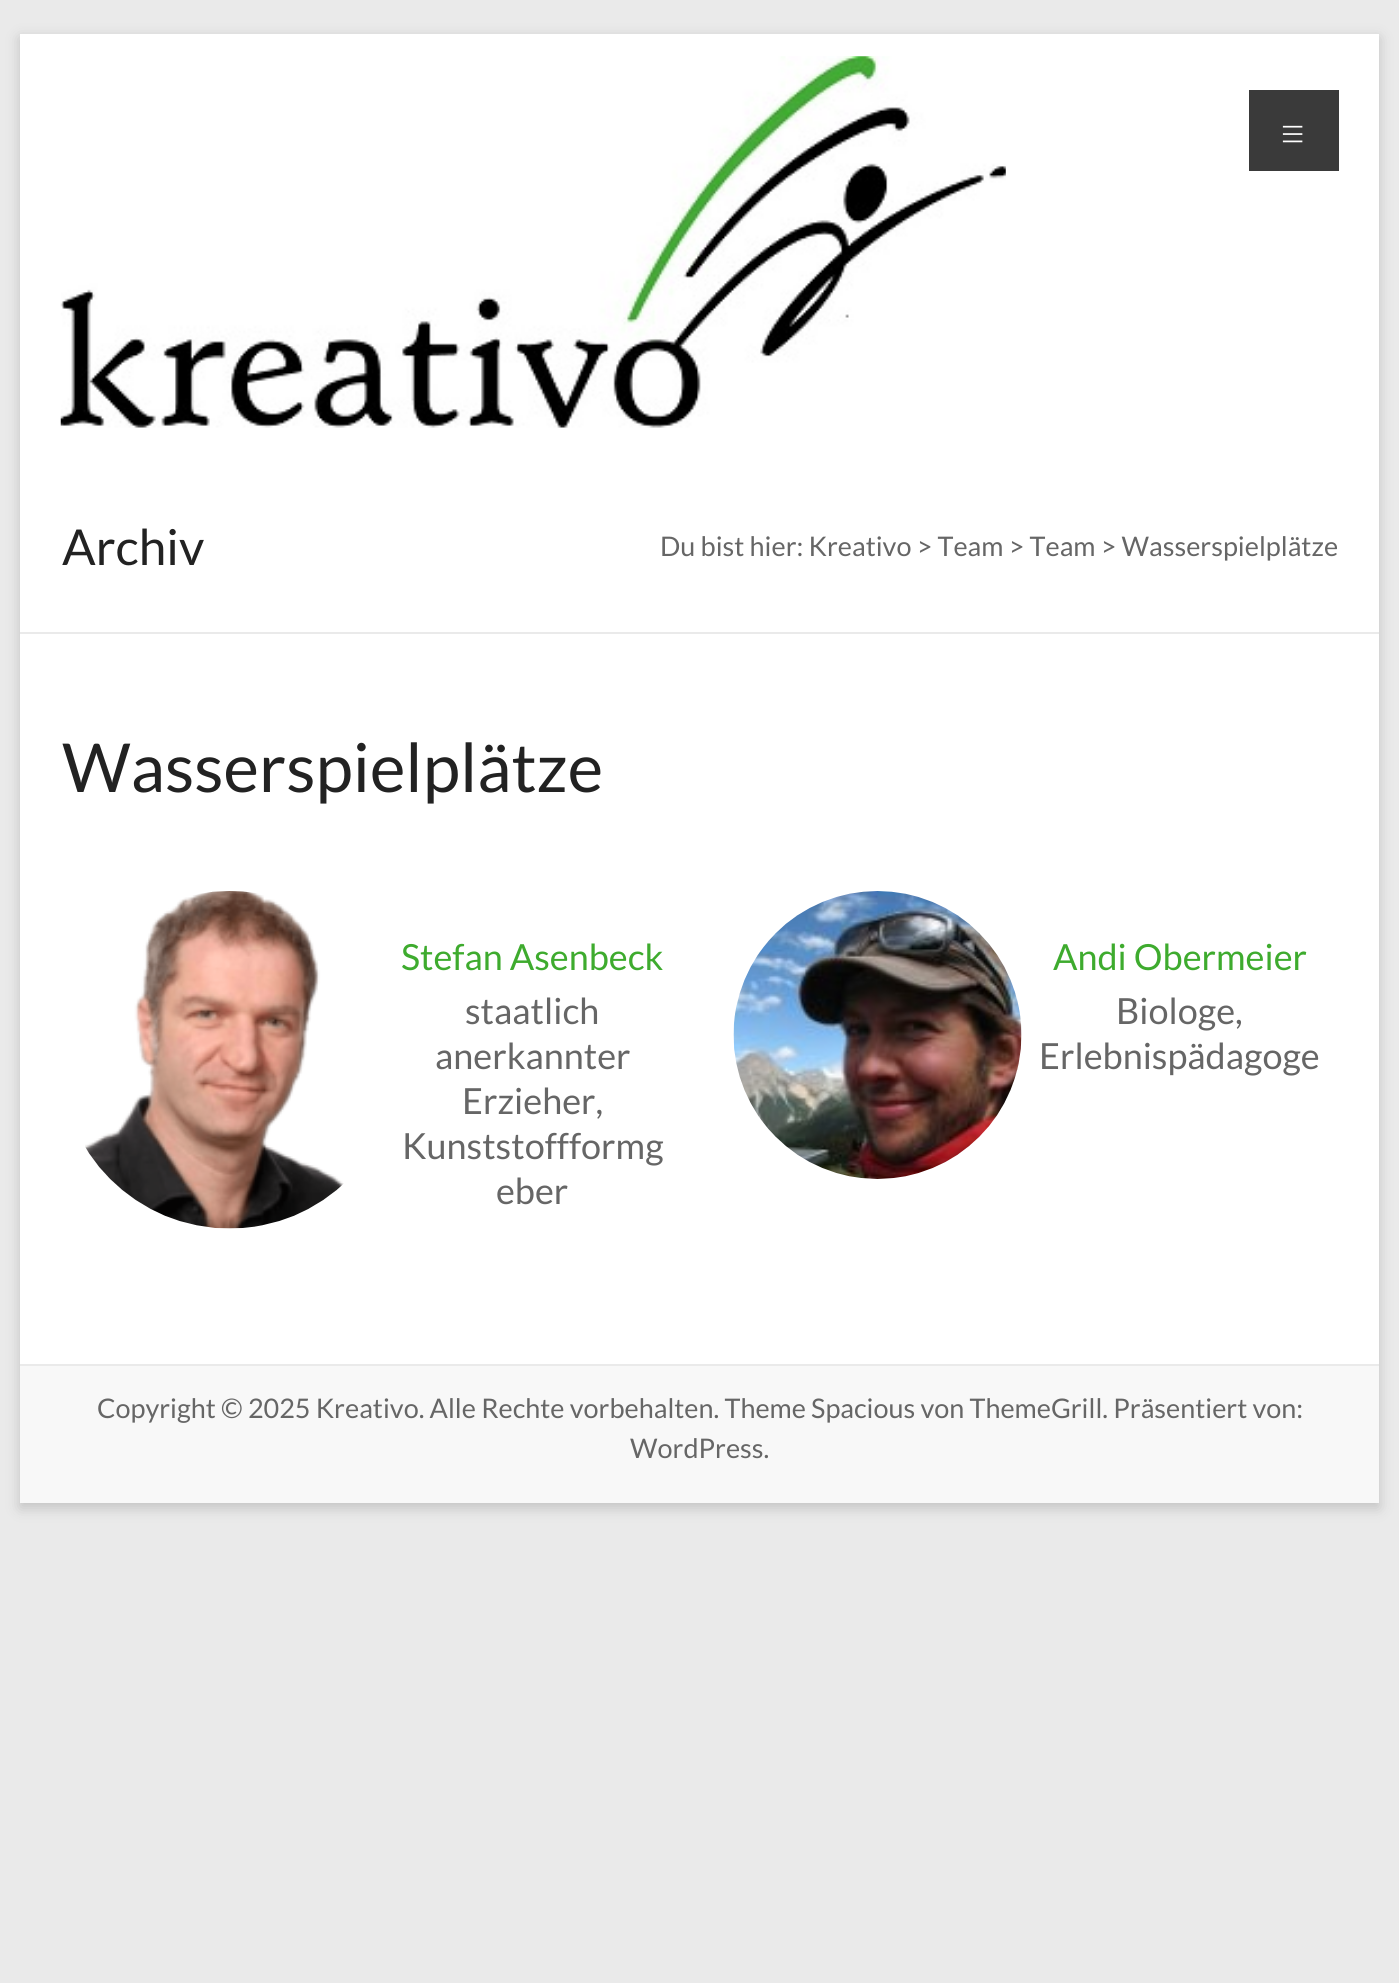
import math
import cairo

surface = cairo.ImageSurface(cairo.FORMAT_RGB24, 1399, 1983)
ctx = cairo.Context(surface)
options = cairo.FontOptions()
options.set_hint_metrics(cairo.HINT_METRICS_OFF)
options.set_hint_style(cairo.HINT_STYLE_NONE)
ctx.set_font_options(options)
ctx.set_miter_limit(4)


def set_color(code):
    ctx.set_source_rgb(*(v / 255 for v in bytes.fromhex(code[-6:])))


def draw_text(x, y, s, family, size, color, bold=False, italic=False):
    ctx.select_font_face(family, cairo.FONT_SLANT_ITALIC if italic else cairo.FONT_SLANT_NORMAL, cairo.FONT_WEIGHT_BOLD if bold else cairo.FONT_WEIGHT_NORMAL)
    ctx.set_font_size(size)
    set_color(color)
    ctx.move_to(x, y)
    ctx.show_text(s)


def fill_rect(x, y, w, h, color):
    set_color(color)
    ctx.rectangle(x, y, w, h)
    ctx.fill()


def rounded_rect(x, y, w, h, r):
    ctx.new_sub_path()
    for i, (u, v) in enumerate([(x + w - r, y + h - r), (x + r, y + h - r), (x + r, y + r), (x + w - r, y + r)]):
        ctx.arc(u, v, r, i * math.pi / 2, (i + 1) * math.pi / 2)
    ctx.close_path()


def draw_shadow(x, y, w, h, r, blur, alpha):
    ctx.push_group_with_content(cairo.CONTENT_ALPHA)
    ctx.set_operator(cairo.OPERATOR_SOURCE)
    for i in range(15, -16, -2):
        e = blur * i / 6
        if min(w, h) + 2 * e > 0:
            ctx.set_source_rgba(0, 0, 0, alpha * math.erfc((i - 1) / 8.5) / 2)
            rounded_rect(x - e, y - e, w + 2 * e, h + 2 * e, max(0, min(r + e + blur * .6, min(w, h) / 2 + e)))
            ctx.fill()
    ctx.mask(ctx.pop_group())


def draw_image(path, x, y, w, h):
    ctx.save()
    ctx.set_source_surface(cairo.ImageSurface.create_from_png(path), x, y)
    ctx.rectangle(x, y, w, h)
    ctx.fill()
    ctx.restore()


set_color("#eaeaea")
ctx.paint()
set_color("#646464")
draw_shadow(20, 38, 1359, 1470, 0, 7, 0.3)
fill_rect(20, 34, 1359, 1330, "#ffffff")
draw_image("assets/img1.png", 60, 56, 946, 372)
fill_rect(1249, 90, 90, 81, "#3a3a3a")
draw_text(1279, 150, "≡", "Lato Light", 47, "#ffffff")
fill_rect(20, 632, 1359, 2, "#eaeaea")
draw_text(62, 565, "Archiv", "Lato", 49.5, "#222222")
draw_text(660, 556, "Du bist hier: Kreativo > Team > Team > Wasserspielplätze", "Lato", 27, "#666666")
draw_text(62, 792, "Wasserspielplätze", "Lato", 67.5, "#222222")
draw_image("assets/img2.png", 85, 891, 259, 338)
draw_text(401, 970, "Stefan Asenbeck", "Lato", 36, "#3eab2e")
draw_text(465, 1024, "staatlich", "Lato", 36, "#666666")
draw_text(435, 1069, "anerkannter", "Lato", 36, "#666666")
draw_text(462, 1114, "Erzieher,", "Lato", 36, "#666666")
draw_text(402, 1159, "Kunststoffformg", "Lato", 36, "#666666")
draw_text(496, 1204, "eber", "Lato", 36, "#666666")
draw_image("assets/img3.png", 733, 891, 289, 288)
draw_text(1053, 970, "Andi Obermeier", "Lato", 36, "#3eab2e")
draw_text(1116, 1024, "Biologe,", "Lato", 36, "#666666")
draw_text(1039, 1069, "Erlebnispädagoge", "Lato", 36, "#666666")
fill_rect(20, 1366, 1359, 137, "#f8f8f8")
fill_rect(20, 1364, 1359, 2, "#eaeaea")
draw_text(97, 1418, "Copyright © 2025 Kreativo. Alle Rechte vorbehalten. Theme Spacious von ThemeGrill. Präsentiert von:", "Lato", 27, "#666666")
draw_text(630, 1458, "WordPress.", "Lato", 27, "#666666")
surface.write_to_png("output.png")
